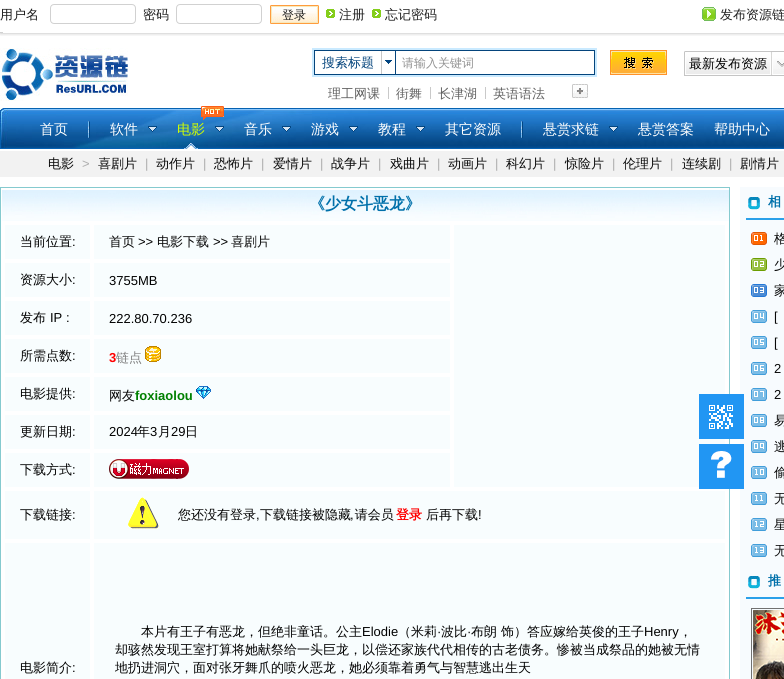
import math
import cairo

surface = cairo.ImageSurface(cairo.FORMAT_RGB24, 784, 679)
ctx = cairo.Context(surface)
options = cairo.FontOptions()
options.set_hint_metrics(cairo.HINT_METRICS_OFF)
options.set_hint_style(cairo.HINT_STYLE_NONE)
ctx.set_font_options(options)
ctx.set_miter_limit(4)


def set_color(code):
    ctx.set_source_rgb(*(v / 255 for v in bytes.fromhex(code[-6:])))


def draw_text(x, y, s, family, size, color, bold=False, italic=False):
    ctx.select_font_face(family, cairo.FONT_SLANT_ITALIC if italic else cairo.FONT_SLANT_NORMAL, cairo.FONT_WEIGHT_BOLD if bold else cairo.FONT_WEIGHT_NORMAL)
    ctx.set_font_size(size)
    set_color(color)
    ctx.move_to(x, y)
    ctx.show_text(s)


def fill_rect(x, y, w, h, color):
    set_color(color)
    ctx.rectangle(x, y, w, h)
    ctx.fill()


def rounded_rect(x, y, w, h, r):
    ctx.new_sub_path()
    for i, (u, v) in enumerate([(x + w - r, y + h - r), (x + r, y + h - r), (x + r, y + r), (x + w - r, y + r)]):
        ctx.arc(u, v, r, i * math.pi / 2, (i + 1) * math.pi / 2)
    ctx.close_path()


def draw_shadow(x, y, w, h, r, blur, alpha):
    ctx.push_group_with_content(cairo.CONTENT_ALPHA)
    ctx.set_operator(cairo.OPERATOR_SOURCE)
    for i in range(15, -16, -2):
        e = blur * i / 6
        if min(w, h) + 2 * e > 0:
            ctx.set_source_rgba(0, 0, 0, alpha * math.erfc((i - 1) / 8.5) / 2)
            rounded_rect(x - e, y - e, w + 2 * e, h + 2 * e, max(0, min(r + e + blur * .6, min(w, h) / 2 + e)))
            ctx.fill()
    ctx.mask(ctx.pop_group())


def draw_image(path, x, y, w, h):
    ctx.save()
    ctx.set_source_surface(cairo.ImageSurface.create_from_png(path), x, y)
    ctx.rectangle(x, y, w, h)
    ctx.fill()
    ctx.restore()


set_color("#ffffff")
ctx.paint()
ctx.save()
ctx.rectangle(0, 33, 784, 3)
ctx.clip()
set_color("#000000")
draw_shadow(0, 1, 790, 32, 0, 2, 0.3)
ctx.restore()
fill_rect(0, 32, 3, 1, "#d1d1d1")
draw_text(0, 19, "用户名", "WenQuanYi Zen Hei Medium", 13, "#1a1a1a")
rounded_rect(50.5, 4.5, 85, 19, 3.5)
set_color("#d1d1d1")
ctx.set_line_width(1)
ctx.stroke()
draw_text(143, 19, "密码", "WenQuanYi Zen Hei Medium", 13, "#1a1a1a")
rounded_rect(176.5, 4.5, 85, 19, 3.5)
set_color("#d1d1d1")
ctx.stroke()
draw_image("assets/img1.png", 270, 5, 49, 19)
draw_text(282, 19, "登录", "WenQuanYi Zen Hei Medium", 12, "#1a1a1a")
draw_image("assets/img2.png", 326, 9, 9, 9)
draw_text(339, 19, "注册", "WenQuanYi Zen Hei Medium", 13, "#212121")
draw_image("assets/img2.png", 372, 9, 9, 9)
draw_text(385, 19, "忘记密码", "WenQuanYi Zen Hei Medium", 13, "#212121")
draw_image("assets/img3.png", 702, 7, 14, 14)
draw_text(720, 19, "发布资源链", "WenQuanYi Zen Hei Medium", 13, "#212121")
draw_image("assets/img4.png", 0, 48, 128, 53)
draw_image("assets/img5.png", 312, 48, 285, 29)
draw_text(322, 67, "搜索标题", "WenQuanYi Zen Hei Medium", 13, "#04447c")
draw_image("assets/img6.png", 385, 60, 7, 4)
fill_rect(395, 51, 1, 23, "#04447c")
fill_rect(381, 51, 1, 23, "#c7c7c7")
draw_text(402, 67, "请输入关键词", "WenQuanYi Zen Hei Medium", 12, "#939393")
draw_image("assets/img7.png", 610, 50, 57, 25)
draw_text(328, 98, "理工网课", "WenQuanYi Zen Hei Medium", 13, "#606060")
fill_rect(388, 87, 1, 12, "#c9c9c9")
draw_text(396, 98, "街舞", "WenQuanYi Zen Hei Medium", 13, "#606060")
fill_rect(430, 87, 1, 12, "#c9c9c9")
draw_text(438, 98, "长津湖", "WenQuanYi Zen Hei Medium", 13, "#606060")
fill_rect(485, 87, 1, 12, "#c9c9c9")
draw_text(493, 98, "英语语法", "WenQuanYi Zen Hei Medium", 13, "#606060")
draw_image("assets/img8.png", 572, 84, 16, 14)
draw_image("assets/img9.png", 684, 51, 100, 25)
draw_text(689, 68, "最新发布资源", "WenQuanYi Zen Hei Medium", 13, "#000000")
draw_image("assets/img10.png", 0, 108, 784, 41)
draw_text(40, 134, "首页", "WenQuanYi Zen Hei Medium", 14, "#ffffff")
draw_image("assets/img11.png", 88, 121, 2, 17)
draw_text(110, 134, "软件", "WenQuanYi Zen Hei Medium", 14, "#ffffff")
draw_image("assets/img12.png", 148, 126, 9, 6)
draw_image("assets/img13.png", 184, 143, 14, 6)
draw_image("assets/img14.png", 201, 106, 23, 14)
draw_text(177, 134, "电影", "WenQuanYi Zen Hei Medium", 14, "#d2ff00")
draw_image("assets/img15.png", 215, 126, 9, 6)
draw_text(244, 134, "音乐", "WenQuanYi Zen Hei Medium", 14, "#ffffff")
draw_image("assets/img16.png", 282, 126, 9, 6)
draw_text(311, 134, "游戏", "WenQuanYi Zen Hei Medium", 14, "#ffffff")
draw_image("assets/img17.png", 349, 126, 9, 6)
draw_text(378, 134, "教程", "WenQuanYi Zen Hei Medium", 14, "#ffffff")
draw_image("assets/img18.png", 416, 126, 9, 6)
draw_text(445, 134, "其它资源", "WenQuanYi Zen Hei Medium", 14, "#ffffff")
draw_image("assets/img11.png", 521, 121, 2, 17)
draw_text(543, 134, "悬赏求链", "WenQuanYi Zen Hei Medium", 14, "#ffffff")
draw_image("assets/img19.png", 609, 126, 9, 6)
draw_text(638, 134, "悬赏答案", "WenQuanYi Zen Hei Medium", 14, "#ffffff")
draw_text(714, 134, "帮助中心", "WenQuanYi Zen Hei Medium", 14, "#ffffff")
fill_rect(0, 151, 784, 26, "#f2f2f2")
draw_text(48, 168, "电影", "WenQuanYi Zen Hei Medium", 13, "#080808")
draw_text(82, 168, ">", "Liberation Sans", 13, "#adadad")
draw_text(98, 168, "喜剧片", "WenQuanYi Zen Hei Medium", 13, "#080808")
draw_text(145, 168, "|", "Liberation Sans", 13, "#adadad")
draw_text(156, 168, "动作片", "WenQuanYi Zen Hei Medium", 13, "#080808")
draw_text(203, 168, "|", "Liberation Sans", 13, "#adadad")
draw_text(214, 168, "恐怖片", "WenQuanYi Zen Hei Medium", 13, "#080808")
draw_text(261, 168, "|", "Liberation Sans", 13, "#adadad")
draw_text(273, 168, "爱情片", "WenQuanYi Zen Hei Medium", 13, "#080808")
draw_text(320, 168, "|", "Liberation Sans", 13, "#adadad")
draw_text(331, 168, "战争片", "WenQuanYi Zen Hei Medium", 13, "#080808")
draw_text(378, 168, "|", "Liberation Sans", 13, "#adadad")
draw_text(390, 168, "戏曲片", "WenQuanYi Zen Hei Medium", 13, "#080808")
draw_text(437, 168, "|", "Liberation Sans", 13, "#adadad")
draw_text(448, 168, "动画片", "WenQuanYi Zen Hei Medium", 13, "#080808")
draw_text(495, 168, "|", "Liberation Sans", 13, "#adadad")
draw_text(506, 168, "科幻片", "WenQuanYi Zen Hei Medium", 13, "#080808")
draw_text(553, 168, "|", "Liberation Sans", 13, "#adadad")
draw_text(565, 168, "惊险片", "WenQuanYi Zen Hei Medium", 13, "#080808")
draw_text(612, 168, "|", "Liberation Sans", 13, "#adadad")
draw_text(623, 168, "伦理片", "WenQuanYi Zen Hei Medium", 13, "#080808")
draw_text(670, 168, "|", "Liberation Sans", 13, "#adadad")
draw_text(682, 168, "连续剧", "WenQuanYi Zen Hei Medium", 13, "#080808")
draw_text(729, 168, "|", "Liberation Sans", 13, "#adadad")
draw_text(740, 168, "剧情片", "WenQuanYi Zen Hei Medium", 13, "#080808")
ctx.rectangle(0.5, 187.5, 729, 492)
set_color("#85cacf")
ctx.stroke()
draw_image("assets/img20.png", 2, 190, 727, 31)
draw_text(309, 209, "《少女斗恶龙》", "WenQuanYi Zen Hei", 16, "#0070aa", bold=True)
fill_rect(5, 225, 85, 34, "#f8fdfe")
draw_text(20, 246, "当前位置", "WenQuanYi Zen Hei Medium", 13, "#000000")
draw_text(72, 246, ":", "Liberation Sans", 13, "#000000")
fill_rect(94, 225, 356, 34, "#f8fdfe")
draw_text(109, 246, "首页", "WenQuanYi Zen Hei Medium", 13, "#080808")
draw_text(138, 246, ">>", "Liberation Sans", 13, "#000000")
draw_text(157, 246, "电影下载", "WenQuanYi Zen Hei Medium", 13, "#080808")
draw_text(213, 246, ">>", "Liberation Sans", 13, "#000000")
draw_text(231, 246, "喜剧片", "WenQuanYi Zen Hei Medium", 13, "#080808")
fill_rect(454, 225, 271, 262, "#f8fdfe")
fill_rect(5, 263, 85, 34, "#f8fdfe")
draw_text(20, 284, "资源大小", "WenQuanYi Zen Hei Medium", 13, "#000000")
draw_text(72, 284, ":", "Liberation Sans", 13, "#000000")
fill_rect(94, 263, 356, 34, "#f8fdfe")
draw_text(109, 285, "3755MB", "Liberation Sans", 13, "#000000")
fill_rect(5, 301, 85, 34, "#f8fdfe")
draw_text(20, 322, "发布", "WenQuanYi Zen Hei Medium", 13, "#000000")
draw_text(50, 322, "IP :", "Liberation Sans", 13, "#000000")
fill_rect(94, 301, 356, 34, "#f8fdfe")
draw_text(109, 323, "222.80.70.236", "Liberation Sans", 13, "#000000")
fill_rect(5, 339, 85, 34, "#f8fdfe")
draw_text(20, 360, "所需点数", "WenQuanYi Zen Hei Medium", 13, "#000000")
draw_text(72, 360, ":", "Liberation Sans", 13, "#000000")
fill_rect(94, 339, 356, 34, "#f8fdfe")
draw_text(109, 362, "3", "Liberation Sans", 13, "#ff0000", bold=True)
draw_text(116, 362, "链点", "WenQuanYi Zen Hei Medium", 13, "#808080")
draw_image("assets/img21.png", 145, 346, 16, 16)
fill_rect(5, 377, 85, 34, "#f8fdfe")
draw_text(20, 398, "电影提供", "WenQuanYi Zen Hei Medium", 13, "#000000")
draw_text(72, 398, ":", "Liberation Sans", 13, "#000000")
fill_rect(94, 377, 356, 34, "#f8fdfe")
draw_text(109, 400, "网友", "WenQuanYi Zen Hei Medium", 13, "#080808")
draw_text(135, 400, "foxiaolou", "Liberation Sans", 13, "#008000", bold=True)
draw_image("assets/img22.png", 196, 386, 15, 13)
fill_rect(5, 415, 85, 34, "#f8fdfe")
draw_text(20, 436, "更新日期", "WenQuanYi Zen Hei Medium", 13, "#000000")
draw_text(72, 436, ":", "Liberation Sans", 13, "#000000")
fill_rect(94, 415, 356, 34, "#f8fdfe")
draw_text(109, 436, "2024", "Liberation Sans", 13, "#000000")
draw_text(137, 436, "年", "WenQuanYi Zen Hei Medium", 13, "#000000")
draw_text(150, 436, "3", "Liberation Sans", 13, "#000000")
draw_text(158, 436, "月", "WenQuanYi Zen Hei Medium", 13, "#000000")
draw_text(171, 436, "29", "Liberation Sans", 13, "#000000")
draw_text(185, 436, "日", "WenQuanYi Zen Hei Medium", 13, "#000000")
fill_rect(5, 453, 85, 34, "#f8fdfe")
draw_text(20, 474, "下载方式", "WenQuanYi Zen Hei Medium", 13, "#000000")
draw_text(72, 474, ":", "Liberation Sans", 13, "#000000")
fill_rect(94, 453, 356, 34, "#f8fdfe")
draw_image("assets/img23.png", 109, 459, 80, 20)
fill_rect(5, 491, 85, 48, "#f8fdfe")
draw_text(20, 519, "下载链接", "WenQuanYi Zen Hei Medium", 13, "#000000")
draw_text(72, 519, ":", "Liberation Sans", 13, "#000000")
fill_rect(94, 491, 631, 48, "#f8fdfe")
draw_image("assets/img24.png", 128, 497, 31, 32)
draw_text(178, 519, "您还没有登录 下载链接被隐藏 请会员", "WenQuanYi Zen Hei Medium", 13, "#000000")
draw_text(396, 519, "登录", "WenQuanYi Zen Hei", 13, "#ff0000", bold=True)
draw_text(426, 519, "后再下载", "WenQuanYi Zen Hei Medium", 13, "#000000")
draw_text(478, 519, "!", "Liberation Sans", 13, "#000000")
draw_text(256, 519, ",", "Liberation Sans", 13, "#000000")
draw_text(350, 519, ",", "Liberation Sans", 13, "#000000")
fill_rect(5, 543, 85, 136, "#f8fdfe")
draw_text(20, 672, "电影简介", "WenQuanYi Zen Hei Medium", 13, "#000000")
draw_text(72, 672, ":", "Liberation Sans", 13, "#000000")
fill_rect(94, 543, 631, 136, "#f8fdfe")
draw_text(141, 636, "本片有王子有恶龙，但绝非童话。公主", "WenQuanYi Zen Hei Medium", 13, "#000000")
draw_text(362, 636, "Elodie", "Liberation Sans", 13, "#000000")
draw_text(398, 636, "（米莉", "WenQuanYi Zen Hei Medium", 13, "#000000")
draw_text(437, 636, "·", "Liberation Sans", 13, "#000000")
draw_text(441, 636, "波比", "WenQuanYi Zen Hei Medium", 13, "#000000")
draw_text(467, 636, "·", "Liberation Sans", 13, "#000000")
draw_text(471, 636, "布朗 饰）答应嫁给英俊的王子", "WenQuanYi Zen Hei Medium", 13, "#000000")
draw_text(644, 636, "Henry", "Liberation Sans", 13, "#000000")
draw_text(679, 636, "，", "WenQuanYi Zen Hei Medium", 13, "#000000")
draw_text(115, 654, "却骇然发现王室打算将她献祭给一头巨龙，以偿还家族代代相传的古老债务。惨被当成祭品的她被无情", "WenQuanYi Zen Hei Medium", 13, "#000000")
draw_text(115, 672, "地扔进洞穴，面对张牙舞爪的喷火恶龙，她必须靠着勇气与智慧逃出生天", "WenQuanYi Zen Hei Medium", 13, "#000000")
fill_rect(740, 187, 44, 492, "#f7fbfe")
draw_image("assets/img25.png", 746, 197, 38, 23)
draw_text(768, 206, "相", "WenQuanYi Zen Hei", 13, "#0070aa", bold=True)
draw_image("assets/img26.png", 751, 232, 16, 325)
draw_text(774, 243, "格", "WenQuanYi Zen Hei Medium", 13, "#080808")
draw_text(774, 269, "少", "WenQuanYi Zen Hei Medium", 13, "#080808")
draw_text(774, 295, "家", "WenQuanYi Zen Hei Medium", 13, "#080808")
draw_text(774, 321, "[", "Liberation Sans", 13, "#080808")
draw_text(774, 347, "[", "Liberation Sans", 13, "#080808")
draw_text(774, 373, "2", "Liberation Sans", 13, "#080808")
draw_text(774, 399, "2", "Liberation Sans", 13, "#080808")
draw_text(774, 425, "易", "WenQuanYi Zen Hei Medium", 13, "#080808")
draw_text(774, 451, "逃", "WenQuanYi Zen Hei Medium", 13, "#080808")
draw_text(774, 477, "偷", "WenQuanYi Zen Hei Medium", 13, "#080808")
draw_text(774, 503, "无", "WenQuanYi Zen Hei Medium", 13, "#080808")
draw_text(774, 529, "星", "WenQuanYi Zen Hei Medium", 13, "#080808")
draw_text(774, 555, "无", "WenQuanYi Zen Hei Medium", 13, "#080808")
draw_image("assets/img25.png", 746, 576, 38, 23)
draw_text(768, 585, "推", "WenQuanYi Zen Hei", 13, "#0070aa", bold=True)
ctx.rectangle(751.5, 608.5, 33, 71)
set_color("#717171")
ctx.stroke()
draw_image("assets/img27.png", 753, 610, 31, 69)
draw_image("assets/img28.png", 699, 394, 45, 45)
draw_image("assets/img29.png", 699, 444, 45, 45)
surface.write_to_png("output.png")
